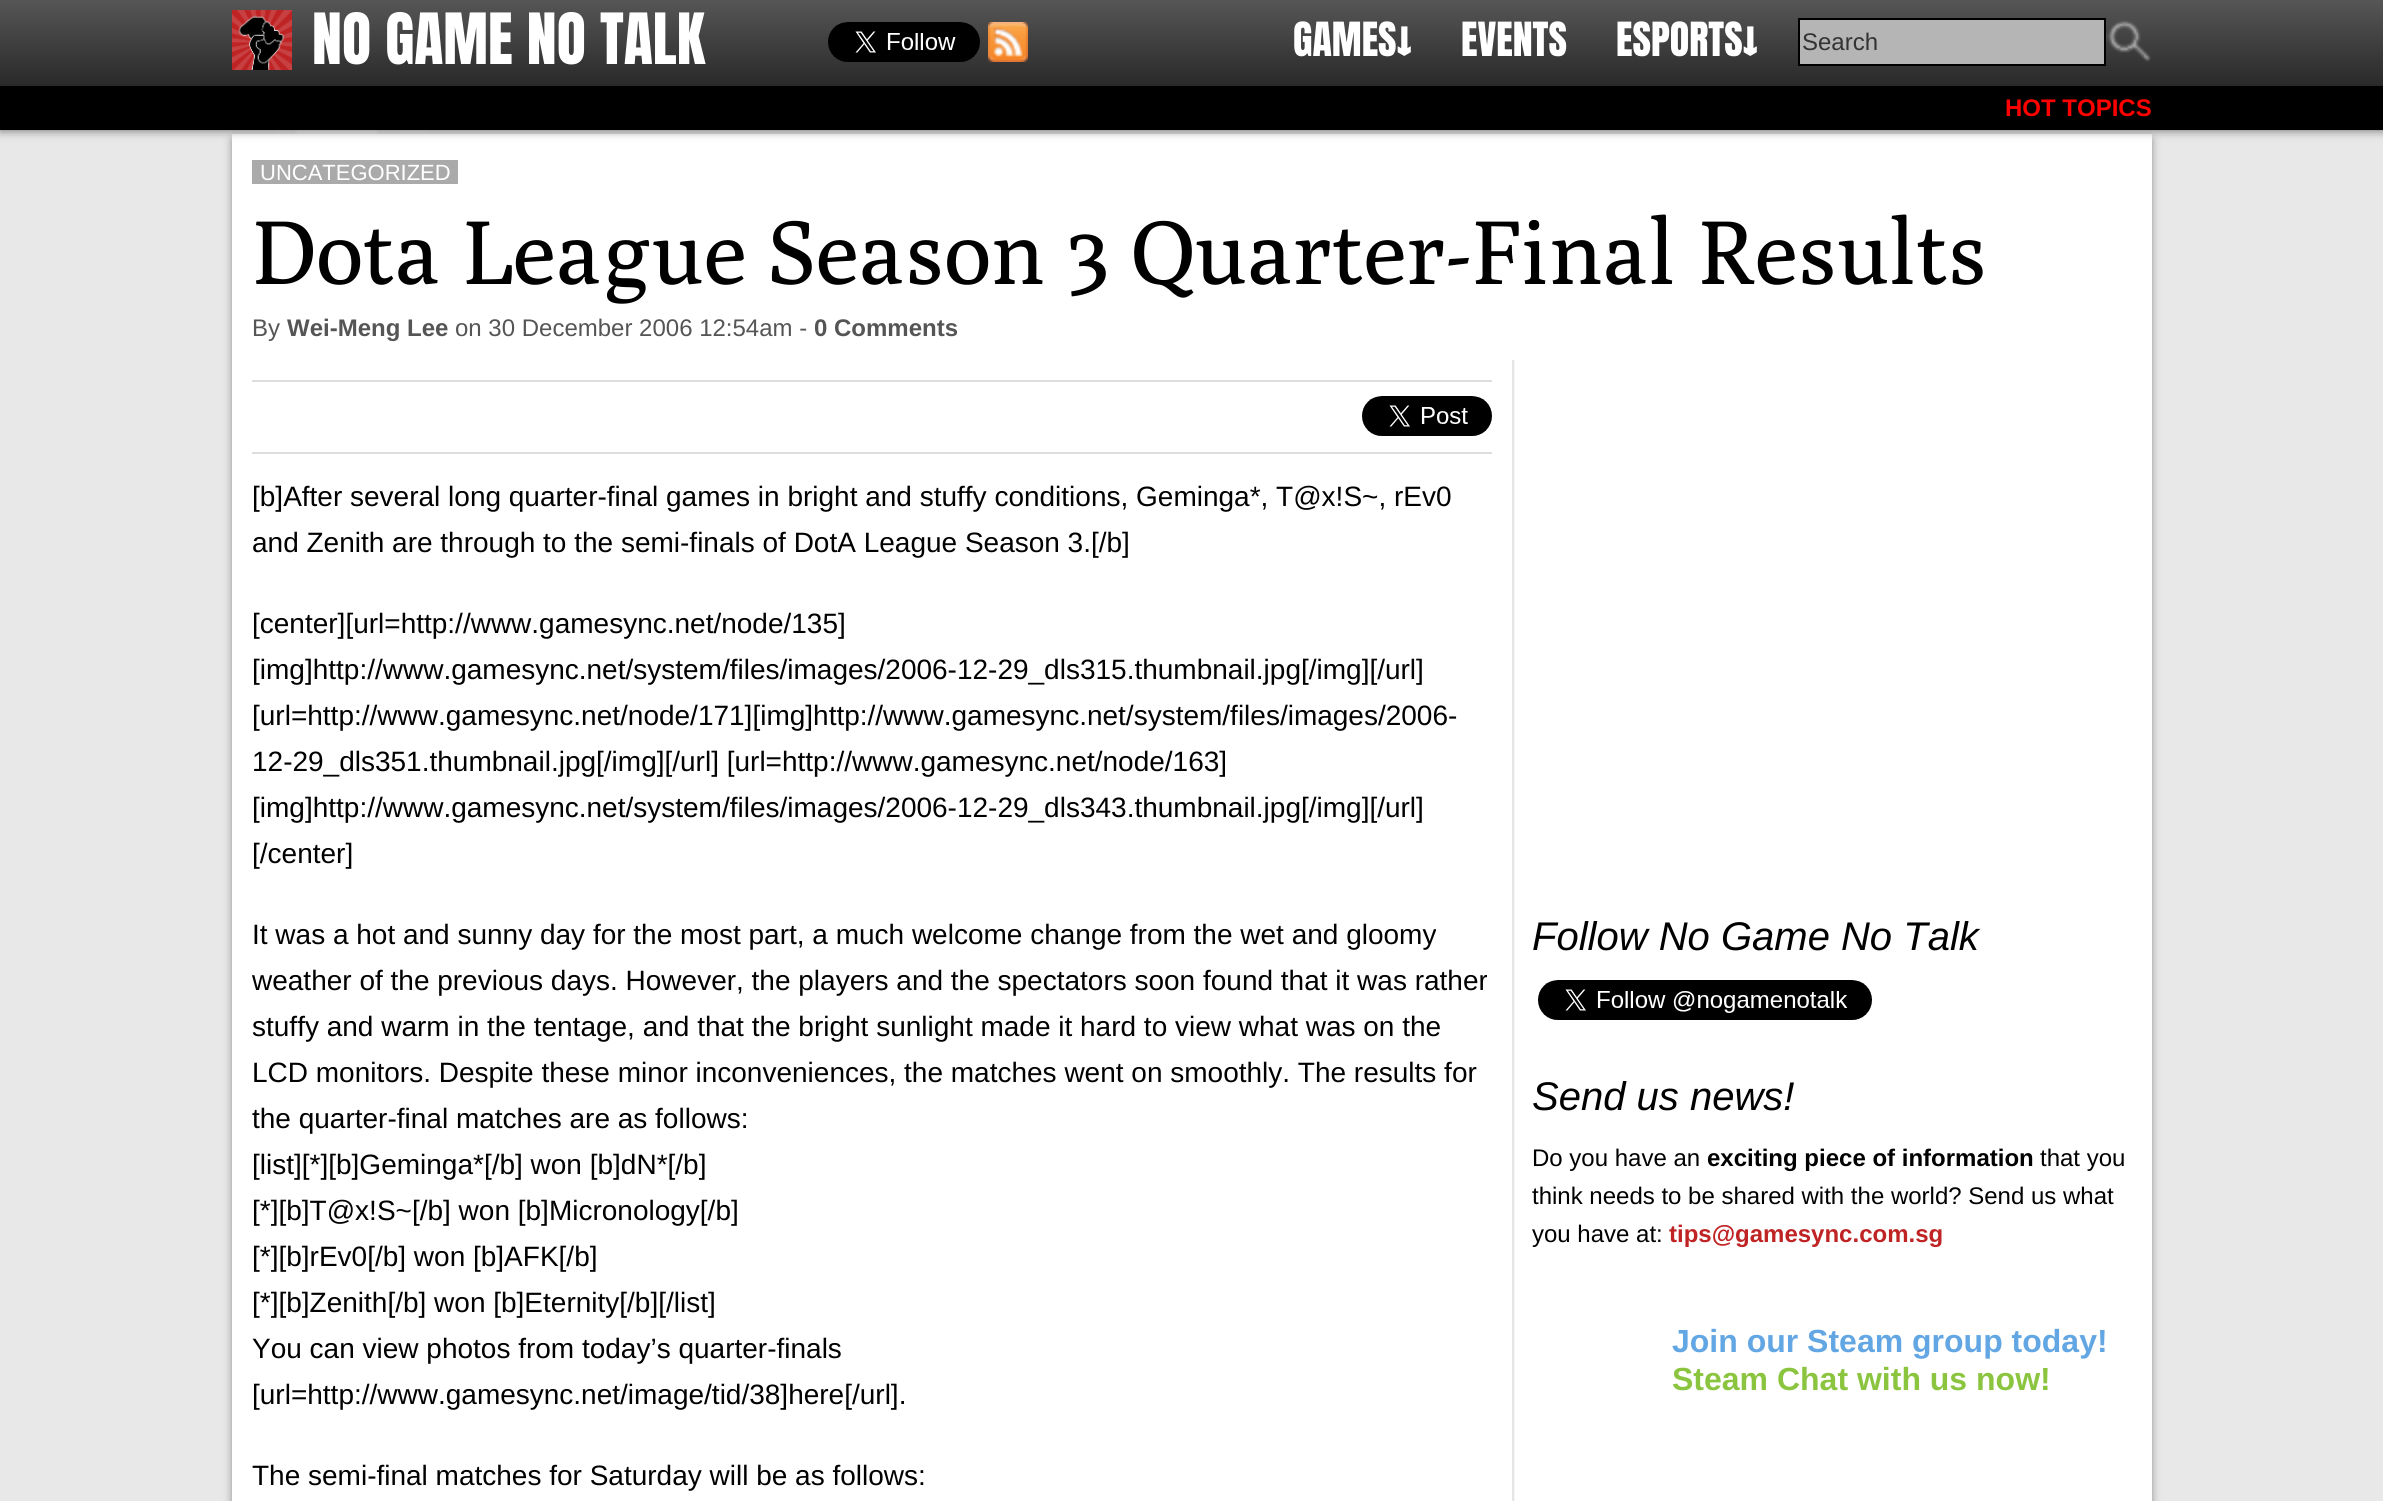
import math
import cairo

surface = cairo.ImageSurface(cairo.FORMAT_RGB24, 2383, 1501)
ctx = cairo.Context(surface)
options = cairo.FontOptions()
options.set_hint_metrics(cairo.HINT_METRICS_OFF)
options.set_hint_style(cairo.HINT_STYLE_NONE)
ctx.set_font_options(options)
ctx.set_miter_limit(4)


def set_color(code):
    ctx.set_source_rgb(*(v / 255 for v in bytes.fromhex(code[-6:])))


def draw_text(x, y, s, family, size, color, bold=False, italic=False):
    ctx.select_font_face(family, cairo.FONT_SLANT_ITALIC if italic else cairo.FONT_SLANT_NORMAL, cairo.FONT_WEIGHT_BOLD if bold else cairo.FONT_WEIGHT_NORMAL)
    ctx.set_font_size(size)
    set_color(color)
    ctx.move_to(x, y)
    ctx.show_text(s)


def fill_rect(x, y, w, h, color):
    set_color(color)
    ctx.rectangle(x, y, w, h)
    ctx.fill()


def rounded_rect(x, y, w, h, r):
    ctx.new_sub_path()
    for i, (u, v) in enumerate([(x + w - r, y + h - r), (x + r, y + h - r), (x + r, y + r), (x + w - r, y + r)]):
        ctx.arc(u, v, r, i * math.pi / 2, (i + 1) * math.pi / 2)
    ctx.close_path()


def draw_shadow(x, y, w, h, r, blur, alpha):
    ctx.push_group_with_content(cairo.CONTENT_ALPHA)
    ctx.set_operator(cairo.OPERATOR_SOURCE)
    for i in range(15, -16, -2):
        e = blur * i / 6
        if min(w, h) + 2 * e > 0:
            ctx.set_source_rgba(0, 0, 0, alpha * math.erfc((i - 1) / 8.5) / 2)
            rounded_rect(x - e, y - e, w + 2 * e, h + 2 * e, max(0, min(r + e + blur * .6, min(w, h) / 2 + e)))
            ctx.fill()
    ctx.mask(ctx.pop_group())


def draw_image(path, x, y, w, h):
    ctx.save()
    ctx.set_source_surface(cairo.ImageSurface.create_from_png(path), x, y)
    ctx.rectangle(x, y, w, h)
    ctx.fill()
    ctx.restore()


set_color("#e8e8e8")
ctx.paint()
draw_image("assets/img1.png", 277, 130, 153, 4)
set_color("#666666")
draw_shadow(234, 140, 1916, 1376, 0, 5, 1)
fill_rect(232, 134, 1920, 226, "#ffffff")
set_color("#666666")
draw_shadow(0, 0, 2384, 130, 0, 5, 1)
gradient = cairo.LinearGradient(0, 0, 0, 86)
gradient.add_color_stop_rgba(0, 0.337, 0.337, 0.337, 1)
gradient.add_color_stop_rgba(1, 0.161, 0.161, 0.161, 1)
ctx.set_source(gradient)
ctx.rectangle(0, 0, 2383, 86)
ctx.fill()
draw_image("assets/img2.png", 232, 10, 60, 60)
draw_text(312, 64, "NO GAME NO TALK", "Anton", 60, "#ffffff")
draw_image("assets/img3.png", 828, 22, 152, 40)
draw_image("assets/img4.png", 988, 22, 40, 40)
draw_text(1293, 56, "GAMES↓", "Anton", 40, "#ffffff")
draw_text(1461, 56, "EVENTS", "Anton", 40, "#ffffff")
draw_text(1616, 56, "ESPORTS↓", "Anton", 40, "#ffffff")
set_color("#b5b5b5")
ctx.rectangle(1799, 19, 306, 46)
ctx.fill_preserve()
set_color("#000000")
ctx.stroke()
draw_text(1802, 50, "Search", "Liberation Sans", 24, "#333333")
draw_image("assets/img5.png", 2106, 20, 45, 43)
fill_rect(0, 86, 2383, 44, "#000000")
draw_text(2005, 116, "HOT TOPICS", "Liberation Sans", 24, "#ff0000", bold=True)
fill_rect(232, 360, 1920, 1141, "#ffffff")
draw_image("assets/img6.png", 1512, 360, 3, 1141)
fill_rect(252, 160, 206, 24, "#aaaaaa")
draw_text(260, 180, "UNCATEGORIZED", "Liberation Sans", 22, "#ffffff")
draw_text(252, 284, "Dota League Season 3 Quarter-Final Results", "Poly", 90, "#000000")
draw_text(252, 336, "By", "Liberation Sans", 24, "#555555")
draw_text(287, 336, "Wei-Meng Lee", "Liberation Sans", 24, "#555555", bold=True)
draw_text(455, 336, "on 30 December 2006 12:54am -", "Liberation Sans", 24, "#555555")
draw_text(814, 336, "0 Comments", "Liberation Sans", 24, "#555555", bold=True)
fill_rect(252, 380, 1240, 2, "#dddddd")
fill_rect(252, 452, 1240, 2, "#dddddd")
draw_image("assets/img7.png", 1362, 396, 130, 40)
draw_text(252, 506, "[b]After several long quarter-final games in bright and stuffy conditions, Geminga*, T@x!S~, rEv0", "Liberation Sans", 28, "#000000")
draw_text(252, 552, "and Zenith are through to the semi-finals of DotA League Season 3.[/b]", "Liberation Sans", 28, "#000000")
draw_text(252, 633, "[center][url=http://www.gamesync.net/node/135]", "Liberation Sans", 28, "#000000")
draw_text(252, 679, "[img]http://www.gamesync.net/system/files/images/2006-12-29_dls315.thumbnail.jpg[/img][/url]", "Liberation Sans", 28, "#000000")
draw_text(252, 725, "[url=http://www.gamesync.net/node/171][img]http://www.gamesync.net/system/files/images/2006-", "Liberation Sans", 28, "#000000")
draw_text(252, 771, "12-29_dls351.thumbnail.jpg[/img][/url] [url=http://www.gamesync.net/node/163]", "Liberation Sans", 28, "#000000")
draw_text(252, 817, "[img]http://www.gamesync.net/system/files/images/2006-12-29_dls343.thumbnail.jpg[/img][/url]", "Liberation Sans", 28, "#000000")
draw_text(252, 863, "[/center]", "Liberation Sans", 28, "#000000")
draw_text(252, 944, "It was a hot and sunny day for the most part, a much welcome change from the wet and gloomy", "Liberation Sans", 28, "#000000")
draw_text(252, 990, "weather of the previous days. However, the players and the spectators soon found that it was rather", "Liberation Sans", 28, "#000000")
draw_text(252, 1036, "stuffy and warm in the tentage, and that the bright sunlight made it hard to view what was on the", "Liberation Sans", 28, "#000000")
draw_text(252, 1082, "LCD monitors. Despite these minor inconveniences, the matches went on smoothly. The results for", "Liberation Sans", 28, "#000000")
draw_text(252, 1128, "the quarter-final matches are as follows:", "Liberation Sans", 28, "#000000")
draw_text(252, 1174, "[list][*][b]Geminga*[/b] won [b]dN*[/b]", "Liberation Sans", 28, "#000000")
draw_text(252, 1220, "[*][b]T@x!S~[/b] won [b]Micronology[/b]", "Liberation Sans", 28, "#000000")
draw_text(252, 1266, "[*][b]rEv0[/b] won [b]AFK[/b]", "Liberation Sans", 28, "#000000")
draw_text(252, 1312, "[*][b]Zenith[/b] won [b]Eternity[/b][/list]", "Liberation Sans", 28, "#000000")
draw_text(252, 1358, "You can view photos from today’s quarter-finals", "Liberation Sans", 28, "#000000")
draw_text(252, 1404, "[url=http://www.gamesync.net/image/tid/38]here[/url].", "Liberation Sans", 28, "#000000")
draw_text(252, 1485, "The semi-final matches for Saturday will be as follows:", "Liberation Sans", 28, "#000000")
draw_text(1532, 950, "Follow No Game No Talk", "Liberation Sans", 40, "#000000", italic=True)
draw_image("assets/img8.png", 1538, 980, 334, 40)
draw_text(1532, 1110, "Send us news!", "Liberation Sans", 40, "#000000", italic=True)
draw_text(1532, 1166, "Do you have an", "Liberation Sans", 24, "#000000")
draw_text(1707, 1166, "exciting piece of information", "Liberation Sans", 24, "#000000", bold=True)
draw_text(2040, 1166, "that you", "Liberation Sans", 24, "#000000")
draw_text(1532, 1204, "think needs to be shared with the world? Send us what", "Liberation Sans", 24, "#000000")
draw_text(1532, 1242, "you have at:", "Liberation Sans", 24, "#000000")
draw_text(1669, 1242, "tips@gamesync.com.sg", "Liberation Sans", 24, "#bf2324", bold=True)
draw_text(1672, 1352, "Join our Steam group today!", "Liberation Sans", 32, "#62a7e3", bold=True)
draw_text(1672, 1390, "Steam Chat with us now!", "Liberation Sans", 32, "#8bc53f", bold=True)
surface.write_to_png("output.png")
